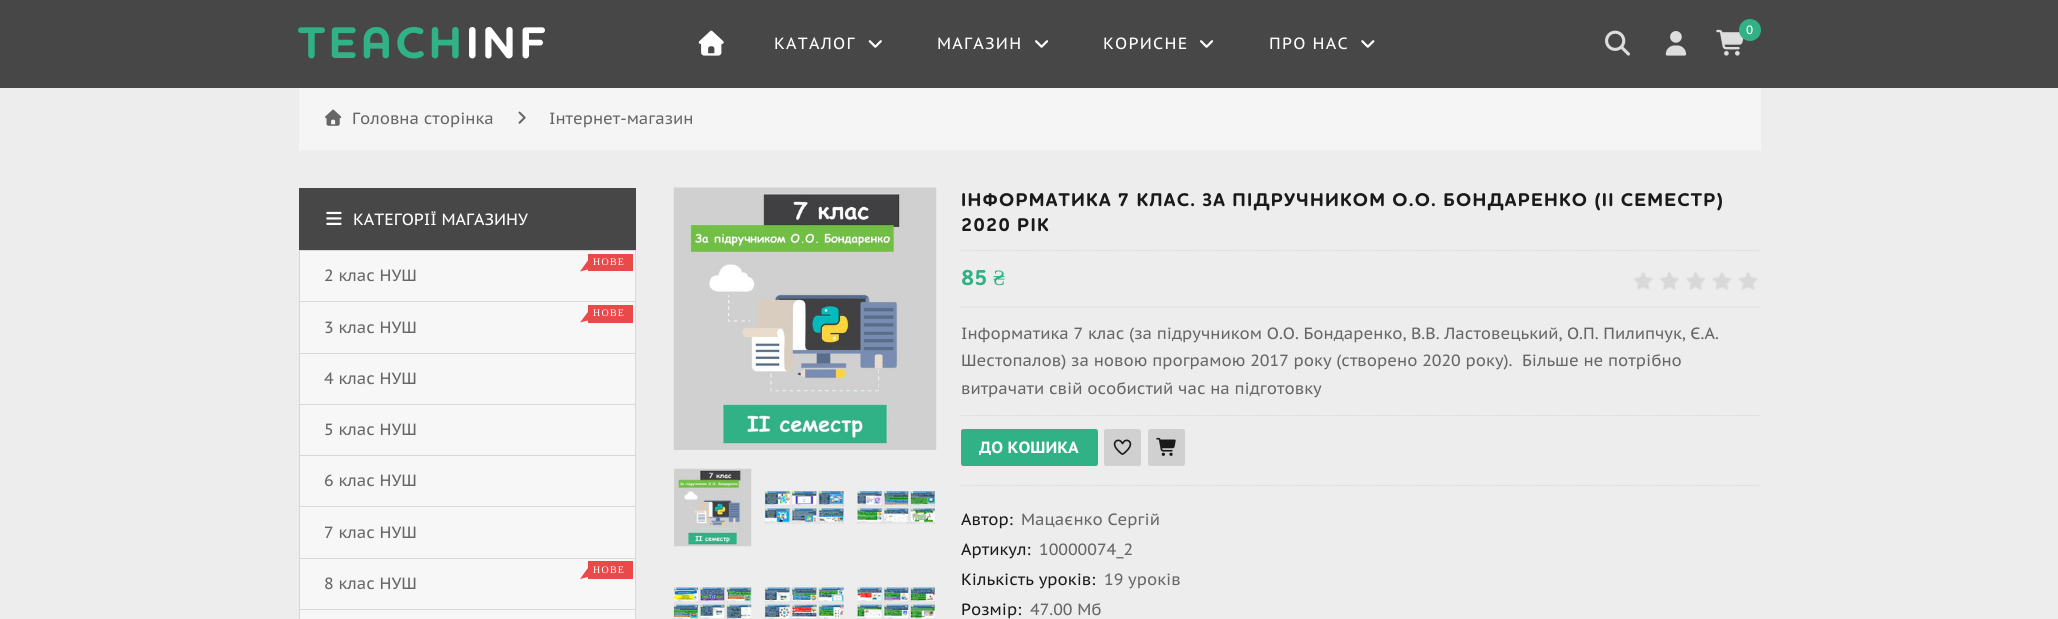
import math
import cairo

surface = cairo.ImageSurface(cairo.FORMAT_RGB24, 2058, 619)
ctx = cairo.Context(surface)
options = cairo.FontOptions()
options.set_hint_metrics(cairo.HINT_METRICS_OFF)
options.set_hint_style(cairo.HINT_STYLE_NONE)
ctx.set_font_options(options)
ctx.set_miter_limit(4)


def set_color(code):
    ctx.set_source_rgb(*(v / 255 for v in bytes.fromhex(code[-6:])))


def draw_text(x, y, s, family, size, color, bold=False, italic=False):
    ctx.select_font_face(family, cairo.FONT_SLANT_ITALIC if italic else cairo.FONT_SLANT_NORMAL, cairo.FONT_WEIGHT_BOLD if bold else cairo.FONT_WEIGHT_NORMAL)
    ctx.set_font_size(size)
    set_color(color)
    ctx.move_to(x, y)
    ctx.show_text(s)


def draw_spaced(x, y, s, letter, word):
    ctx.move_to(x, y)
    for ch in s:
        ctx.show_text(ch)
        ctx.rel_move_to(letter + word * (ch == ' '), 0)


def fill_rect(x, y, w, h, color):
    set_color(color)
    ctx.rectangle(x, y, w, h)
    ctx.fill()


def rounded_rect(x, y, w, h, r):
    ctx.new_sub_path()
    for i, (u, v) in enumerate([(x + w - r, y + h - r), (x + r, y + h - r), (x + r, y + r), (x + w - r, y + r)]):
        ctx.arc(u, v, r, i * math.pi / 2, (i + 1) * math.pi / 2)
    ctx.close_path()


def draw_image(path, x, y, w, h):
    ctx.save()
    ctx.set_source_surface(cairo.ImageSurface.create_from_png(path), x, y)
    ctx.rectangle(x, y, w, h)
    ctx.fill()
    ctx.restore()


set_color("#ededed")
ctx.paint()
fill_rect(0, 0, 2058, 88, "#474747")
ctx.select_font_face("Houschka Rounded", cairo.FONT_SLANT_NORMAL, cairo.FONT_WEIGHT_BOLD)
ctx.set_font_size(45)
set_color("#30b286")
draw_spaced(298, 58, "TEACH", 3.75, 0)
set_color("#ffffff")
draw_spaced(466, 58, "INF", 3.75, 0)
draw_image("assets/img1.png", 698, 30, 26, 26)
ctx.select_font_face("PT Sans Caption")
ctx.set_font_size(16.25)
draw_spaced(774, 49, "КАТАЛОГ", 1.25, 0)
draw_image("assets/img2.png", 868, 40, 14, 8)
draw_spaced(937, 49, "МАГАЗИН", 1.25, 0)
draw_image("assets/img3.png", 1035, 40, 14, 8)
draw_spaced(1103, 49, "КОРИСНЕ", 1.25, 0)
draw_image("assets/img3.png", 1200, 40, 14, 8)
draw_spaced(1269, 49, "ПРО НАС", 1.25, 0)
draw_image("assets/img4.png", 1361, 40, 14, 8)
draw_image("assets/img5.png", 1605, 30, 25, 26)
draw_image("assets/img6.png", 1665, 31, 22, 25)
draw_image("assets/img7.png", 1716, 29, 28, 27)
set_color("#30b286")
ctx.arc(1750, 30, 11, 0, 2 * math.pi)
ctx.fill()
draw_text(1746, 34, "0", "PT Sans Caption", 12, "#ffffff")
fill_rect(299, 88, 1462, 62, "#f5f5f5")
draw_image("assets/img8.png", 325, 109, 17, 17)
draw_text(352, 124, "Головна сторінка", "PT Sans Caption", 16.25, "#666666")
draw_image("assets/img9.png", 518, 111, 8, 13)
draw_text(549, 124, "Інтернет-магазин", "PT Sans Caption", 16.25, "#666666")
fill_rect(299, 188, 337, 62, "#474747")
draw_image("assets/img10.png", 326, 211, 16, 14)
draw_text(353, 225, "КАТЕГОРІЇ МАГАЗИНУ", "PT Sans Caption", 16.25, "#ffffff")
set_color("#f7f7f7")
ctx.rectangle(299.5, 250.5, 336, 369)
ctx.fill_preserve()
set_color("#d8d8d8")
ctx.set_line_width(1)
ctx.stroke()
set_color("#e94949")
ctx.new_path()
ctx.move_to(606, 256)
ctx.line_to(599, 266.5)
ctx.line_to(580, 271.5)
ctx.line_to(587.5, 261)
ctx.close_path()
ctx.fill()
fill_rect(588, 254, 45, 17, "#e94949")
ctx.select_font_face("Liberation Serif")
ctx.set_font_size(10)
set_color("#ffffff")
draw_spaced(593, 265, "НОВЕ", 1.25, 0)
draw_text(324, 281, "2 клас НУШ", "PT Sans Caption", 16.25, "#666666")
fill_rect(300, 301, 335, 1, "#d8d8d8")
set_color("#e94949")
ctx.new_path()
ctx.move_to(606, 307.5)
ctx.line_to(599, 317.5)
ctx.line_to(580, 322.5)
ctx.line_to(587.5, 312.5)
ctx.close_path()
ctx.fill()
fill_rect(588, 305, 45, 18, "#e94949")
ctx.select_font_face("Liberation Serif")
ctx.set_font_size(10)
set_color("#ffffff")
draw_spaced(593, 316, "НОВЕ", 1.25, 0)
draw_text(324, 333, "3 клас НУШ", "PT Sans Caption", 16.25, "#666666")
fill_rect(300, 353, 335, 1, "#d8d8d8")
draw_text(324, 384, "4 клас НУШ", "PT Sans Caption", 16.25, "#666666")
fill_rect(300, 404, 335, 1, "#d8d8d8")
draw_text(324, 435, "5 клас НУШ", "PT Sans Caption", 16.25, "#666666")
fill_rect(300, 455, 335, 1, "#d8d8d8")
draw_text(324, 486, "6 клас НУШ", "PT Sans Caption", 16.25, "#666666")
fill_rect(300, 506, 335, 1, "#d8d8d8")
draw_text(324, 538, "7 клас НУШ", "PT Sans Caption", 16.25, "#666666")
fill_rect(300, 558, 335, 1, "#d8d8d8")
set_color("#e94949")
ctx.new_path()
ctx.move_to(606, 563.5)
ctx.line_to(599, 574)
ctx.line_to(580, 579)
ctx.line_to(587.5, 568.5)
ctx.close_path()
ctx.fill()
fill_rect(588, 561, 45, 18, "#e94949")
ctx.select_font_face("Liberation Serif")
ctx.set_font_size(10)
set_color("#ffffff")
draw_spaced(593, 573, "НОВЕ", 1.25, 0)
draw_text(324, 589, "8 клас НУШ", "PT Sans Caption", 16.25, "#666666")
fill_rect(300, 609, 335, 1, "#d8d8d8")
draw_image("assets/img11.png", 673, 187, 264, 263)
draw_image("assets/img12.png", 674, 468, 78, 79)
draw_image("assets/img13.png", 765, 487, 79, 38)
draw_image("assets/img14.png", 857, 487, 78, 38)
draw_image("assets/img15.png", 673, 584, 79, 35)
draw_image("assets/img16.png", 765, 583, 79, 36)
draw_image("assets/img17.png", 857, 583, 78, 36)
ctx.new_path()
ctx.move_to(961, 250.5)
ctx.line_to(1761, 250.5)
ctx.set_line_width(1.2)
ctx.set_dash([1.25, 1.25])
ctx.stroke()
ctx.select_font_face("Houschka Rounded", cairo.FONT_SLANT_NORMAL, cairo.FONT_WEIGHT_BOLD)
ctx.set_font_size(18.75)
set_color("#1a1a1a")
draw_spaced(961, 206, "ІНФОРМАТИКА 7 КЛАС. ЗА ПІДРУЧНИКОМ О.О. БОНДАРЕНКО (ІI СЕМЕСТР)", 1.25, 0)
draw_spaced(961, 231, "2020 РІК", 1.25, 0)
ctx.new_path()
ctx.move_to(961, 307)
ctx.line_to(1761, 307)
set_color("#d8d8d8")
ctx.stroke()
draw_text(961, 285, "85", "Houschka Rounded", 22, "#30b286", bold=True)
draw_text(993, 285, "₴", "Liberation Serif", 22, "#30b286")
draw_image("assets/img18.png", 1633, 271, 125, 19)
ctx.new_path()
ctx.move_to(961, 415.5)
ctx.line_to(1761, 415.5)
set_color("#d8d8d8")
ctx.stroke()
draw_text(961, 339, "Інформатика 7 клас (за підручником О.О. Бондаренко, В.В. Ластовецький, О.П. Пилипчук, Є.А.", "PT Sans Caption", 16.25, "#666666")
draw_text(961, 366, "Шестопалов) за новою програмою 2017 року (створено 2020 року).  Більше не потрібно", "PT Sans Caption", 16.25, "#666666")
draw_text(961, 394, "витрачати свій особистий час на підготовку", "PT Sans Caption", 16.25, "#666666")
ctx.new_path()
ctx.move_to(961, 485.5)
ctx.line_to(1761, 485.5)
set_color("#d8d8d8")
ctx.stroke()
set_color("#30b286")
rounded_rect(961, 429, 137, 37, 2.5)
ctx.fill()
draw_text(979, 453, "ДО КОШИКА", "PT Sans Caption", 16.25, "#ffffff", bold=True)
set_color("#d0d0d0")
rounded_rect(1104, 429, 37, 37, 2.5)
ctx.fill()
draw_image("assets/img19.png", 1113, 439, 19, 16)
rounded_rect(1148, 429, 37, 37, 2.5)
ctx.fill()
draw_image("assets/img20.png", 1156, 437, 20, 19)
draw_text(961, 525, "Автор:", "PT Sans Caption", 16.25, "#1a1a1a")
draw_text(1021, 525, "Мацаєнко Сергій", "PT Sans Caption", 16.25, "#666666")
draw_text(961, 555, "Артикул:", "PT Sans Caption", 16.25, "#1a1a1a")
draw_text(1039, 555, "10000074_2", "PT Sans Caption", 16.25, "#666666")
draw_text(961, 585, "Кількість уроків:", "PT Sans Caption", 16.25, "#1a1a1a")
draw_text(1104, 585, "19 уроків", "PT Sans Caption", 16.25, "#666666")
draw_text(961, 615, "Розмір:", "PT Sans Caption", 16.25, "#1a1a1a")
draw_text(1030, 615, "47.00 Мб", "PT Sans Caption", 16.25, "#666666")
surface.write_to_png("output.png")
